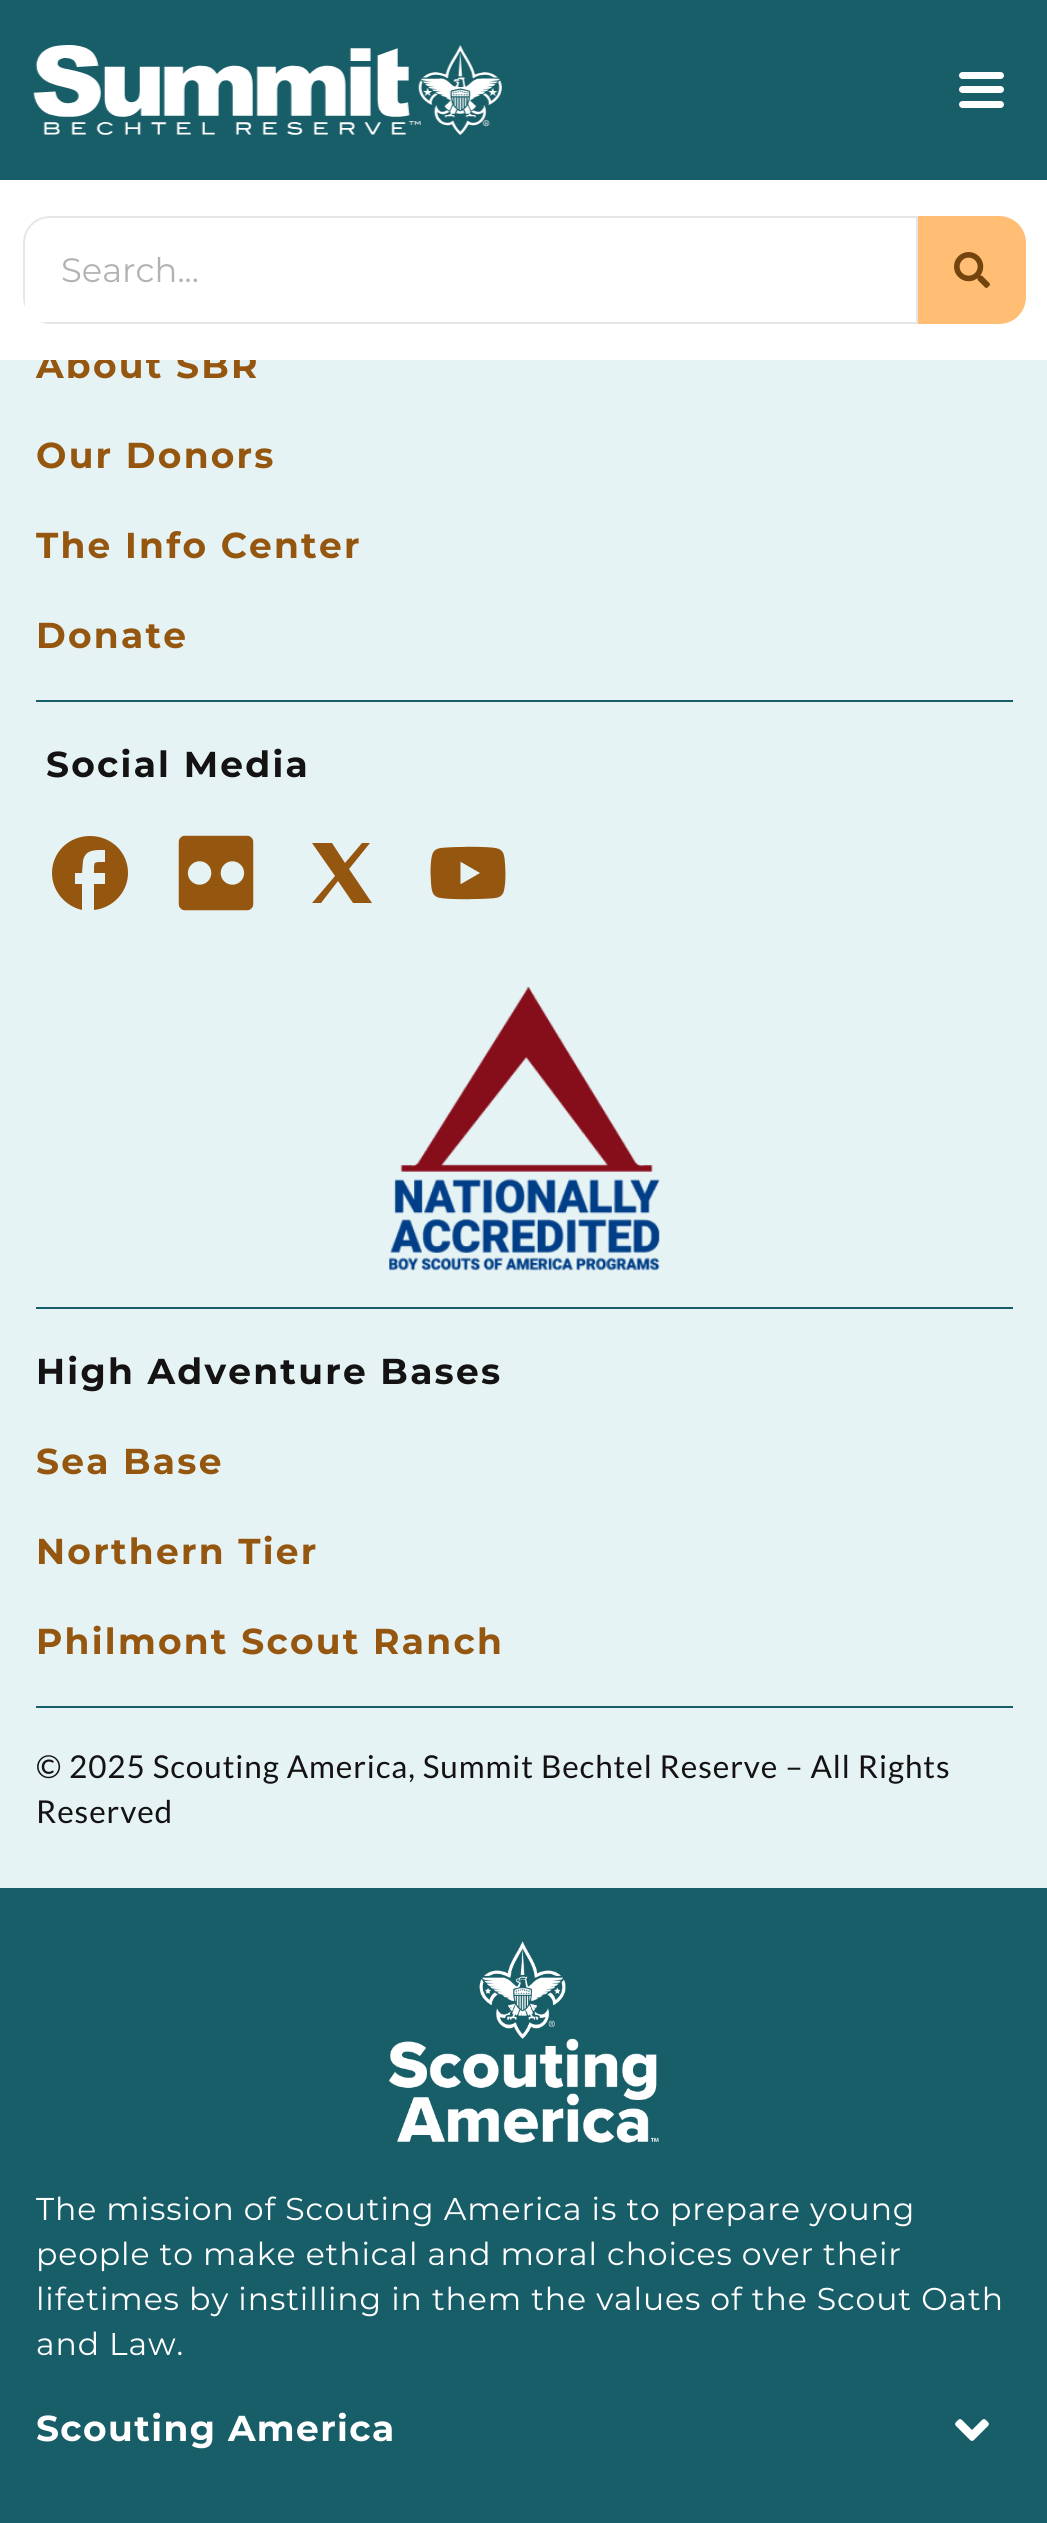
import math
import cairo

surface = cairo.ImageSurface(cairo.FORMAT_RGB24, 1047, 2523)
ctx = cairo.Context(surface)
options = cairo.FontOptions()
options.set_hint_metrics(cairo.HINT_METRICS_OFF)
options.set_hint_style(cairo.HINT_STYLE_NONE)
ctx.set_font_options(options)
ctx.set_miter_limit(4)


def set_color(code):
    ctx.set_source_rgb(*(v / 255 for v in bytes.fromhex(code[-6:])))


def draw_text(x, y, s, family, size, color, bold=False, italic=False):
    ctx.select_font_face(family, cairo.FONT_SLANT_ITALIC if italic else cairo.FONT_SLANT_NORMAL, cairo.FONT_WEIGHT_BOLD if bold else cairo.FONT_WEIGHT_NORMAL)
    ctx.set_font_size(size)
    set_color(color)
    ctx.move_to(x, y)
    ctx.show_text(s)


def draw_spaced(x, y, s, letter, word):
    ctx.move_to(x, y)
    for ch in s:
        ctx.show_text(ch)
        ctx.rel_move_to(letter + word * (ch == ' '), 0)


def fill_rect(x, y, w, h, color):
    set_color(color)
    ctx.rectangle(x, y, w, h)
    ctx.fill()


def rounded_rect(x, y, w, h, r):
    ctx.new_sub_path()
    for i, (u, v) in enumerate([(x + w - r, y + h - r), (x + r, y + h - r), (x + r, y + r), (x + w - r, y + r)]):
        ctx.arc(u, v, r, i * math.pi / 2, (i + 1) * math.pi / 2)
    ctx.close_path()


def draw_image(path, x, y, w, h):
    ctx.save()
    ctx.set_source_surface(cairo.ImageSurface.create_from_png(path), x, y)
    ctx.rectangle(x, y, w, h)
    ctx.fill()
    ctx.restore()


set_color("#e6f3f5")
ctx.paint()
fill_rect(0, 0, 1047, 180, "#185e68")
draw_image("assets/img1.png", 33, 45, 469, 90)
set_color("#ffffff")
rounded_rect(959, 86, 45, 7, 3.5)
ctx.fill()
rounded_rect(959, 72, 45, 7, 3.5)
ctx.fill()
rounded_rect(959, 101, 45, 7, 3.5)
ctx.fill()
ctx.select_font_face("Montserrat", cairo.FONT_SLANT_NORMAL, cairo.FONT_WEIGHT_BOLD)
ctx.set_font_size(36)
set_color("#95560f")
draw_spaced(36, 378, "About SBR", 2.25, 0)
fill_rect(0, 180, 1047, 180, "#ffffff")
set_color("#e6e6e6")
ctx.new_path()
ctx.move_to(50, 216)
ctx.curve_to(35, 216, 23, 228, 23, 243)
ctx.line_to(23, 297)
ctx.curve_to(23, 301, 24, 304, 25, 307)
ctx.line_to(25, 243)
ctx.curve_to(25, 229, 36, 218, 50, 218)
ctx.line_to(916, 218)
ctx.line_to(916, 322)
ctx.line_to(40, 322)
ctx.curve_to(43, 323, 46, 324, 50, 324)
ctx.line_to(918, 324)
ctx.line_to(918, 216)
ctx.close_path()
ctx.fill()
draw_text(61, 282, "Search...", "Montserrat", 33.75, "#b3b3b3")
set_color("#ffbe74")
ctx.new_path()
ctx.move_to(918, 216)
ctx.line_to(999, 216)
ctx.curve_to(1014, 216, 1026, 228, 1026, 243)
ctx.line_to(1026, 297)
ctx.curve_to(1026, 312, 1014, 324, 999, 324)
ctx.line_to(918, 324)
ctx.close_path()
ctx.fill()
draw_image("assets/img2.png", 954, 252, 36, 36)
ctx.select_font_face("Montserrat", cairo.FONT_SLANT_NORMAL, cairo.FONT_WEIGHT_BOLD)
ctx.set_font_size(36)
set_color("#95560f")
draw_spaced(36, 468, "Our Donors", 2.25, 0)
draw_spaced(36, 558, "The Info Center", 2.25, 0)
draw_spaced(36, 648, "Donate", 2.25, 0)
fill_rect(36, 700, 977, 2, "#185e68")
set_color("#141212")
draw_spaced(46, 777, "Social Media", 2.25, 0)
set_color("#95560f")
ctx.new_path()
ctx.move_to(128, 873)
ctx.curve_to(128, 852, 111, 836, 90, 836)
ctx.curve_to(69, 836, 52, 852, 52, 873)
ctx.curve_to(52, 891, 65, 906, 82, 910)
ctx.line_to(82, 884)
ctx.line_to(75, 884)
ctx.line_to(75, 873)
ctx.line_to(82, 873)
ctx.line_to(83, 861)
ctx.curve_to(85, 849, 96, 850, 105, 850)
ctx.line_to(105, 862)
ctx.curve_to(93, 862, 94, 861, 94, 873)
ctx.line_to(105, 873)
ctx.line_to(105, 884)
ctx.line_to(94, 884)
ctx.line_to(94, 910)
ctx.curve_to(113, 908, 128, 892, 128, 873)
ctx.close_path()
ctx.fill()
draw_image("assets/img3.png", 178, 835, 76, 76)
ctx.new_path()
ctx.move_to(312, 843)
ctx.line_to(335, 876)
ctx.line_to(312, 903)
ctx.line_to(321, 903)
ctx.line_to(338, 881)
ctx.line_to(353, 903)
ctx.line_to(372, 903)
ctx.line_to(349, 869)
ctx.line_to(370, 843)
ctx.line_to(362, 843)
ctx.line_to(345, 863)
ctx.line_to(332, 843)
ctx.close_path()
ctx.fill()
draw_image("assets/img4.png", 430, 846, 76, 54)
draw_image("assets/img5.png", 389, 987, 271, 284)
fill_rect(36, 1307, 977, 2, "#185e68")
set_color("#141212")
draw_spaced(36, 1384, "High Adventure Bases", 2.25, 0)
set_color("#95560f")
draw_spaced(36, 1474, "Sea Base", 2.25, 0)
draw_spaced(36, 1564, "Northern Tier", 2.25, 0)
draw_spaced(36, 1654, "Philmont Scout Ranch", 2.25, 0)
fill_rect(36, 1706, 977, 2, "#185e68")
ctx.select_font_face("Lato")
ctx.set_font_size(31.5)
set_color("#141212")
draw_spaced(36, 1778, "© 2025 Scouting America, Summit Bechtel Reserve – All Rights", 0.9, 0)
draw_spaced(36, 1823, "Reserved", 0.9, 0)
fill_rect(0, 1888, 1047, 635, "#185e68")
draw_image("assets/img6.png", 389, 1941, 270, 202)
ctx.select_font_face("Montserrat")
set_color("#ffffff")
draw_spaced(36, 2220, "The mission of Scouting America is to prepare young", 0.9, 0)
draw_spaced(36, 2265, "people to make ethical and moral choices over their", 0.9, 0)
draw_spaced(36, 2310, "lifetimes by instilling in them the values of the Scout Oath", 0.9, 0)
draw_spaced(36, 2355, "and Law.", 0.9, 0)
ctx.select_font_face("Montserrat", cairo.FONT_SLANT_NORMAL, cairo.FONT_WEIGHT_BOLD)
ctx.set_font_size(36)
draw_spaced(36, 2441, "Scouting America", 1.4, 0)
draw_image("assets/img7.png", 955, 2419, 34, 22)
surface.write_to_png("output.png")
